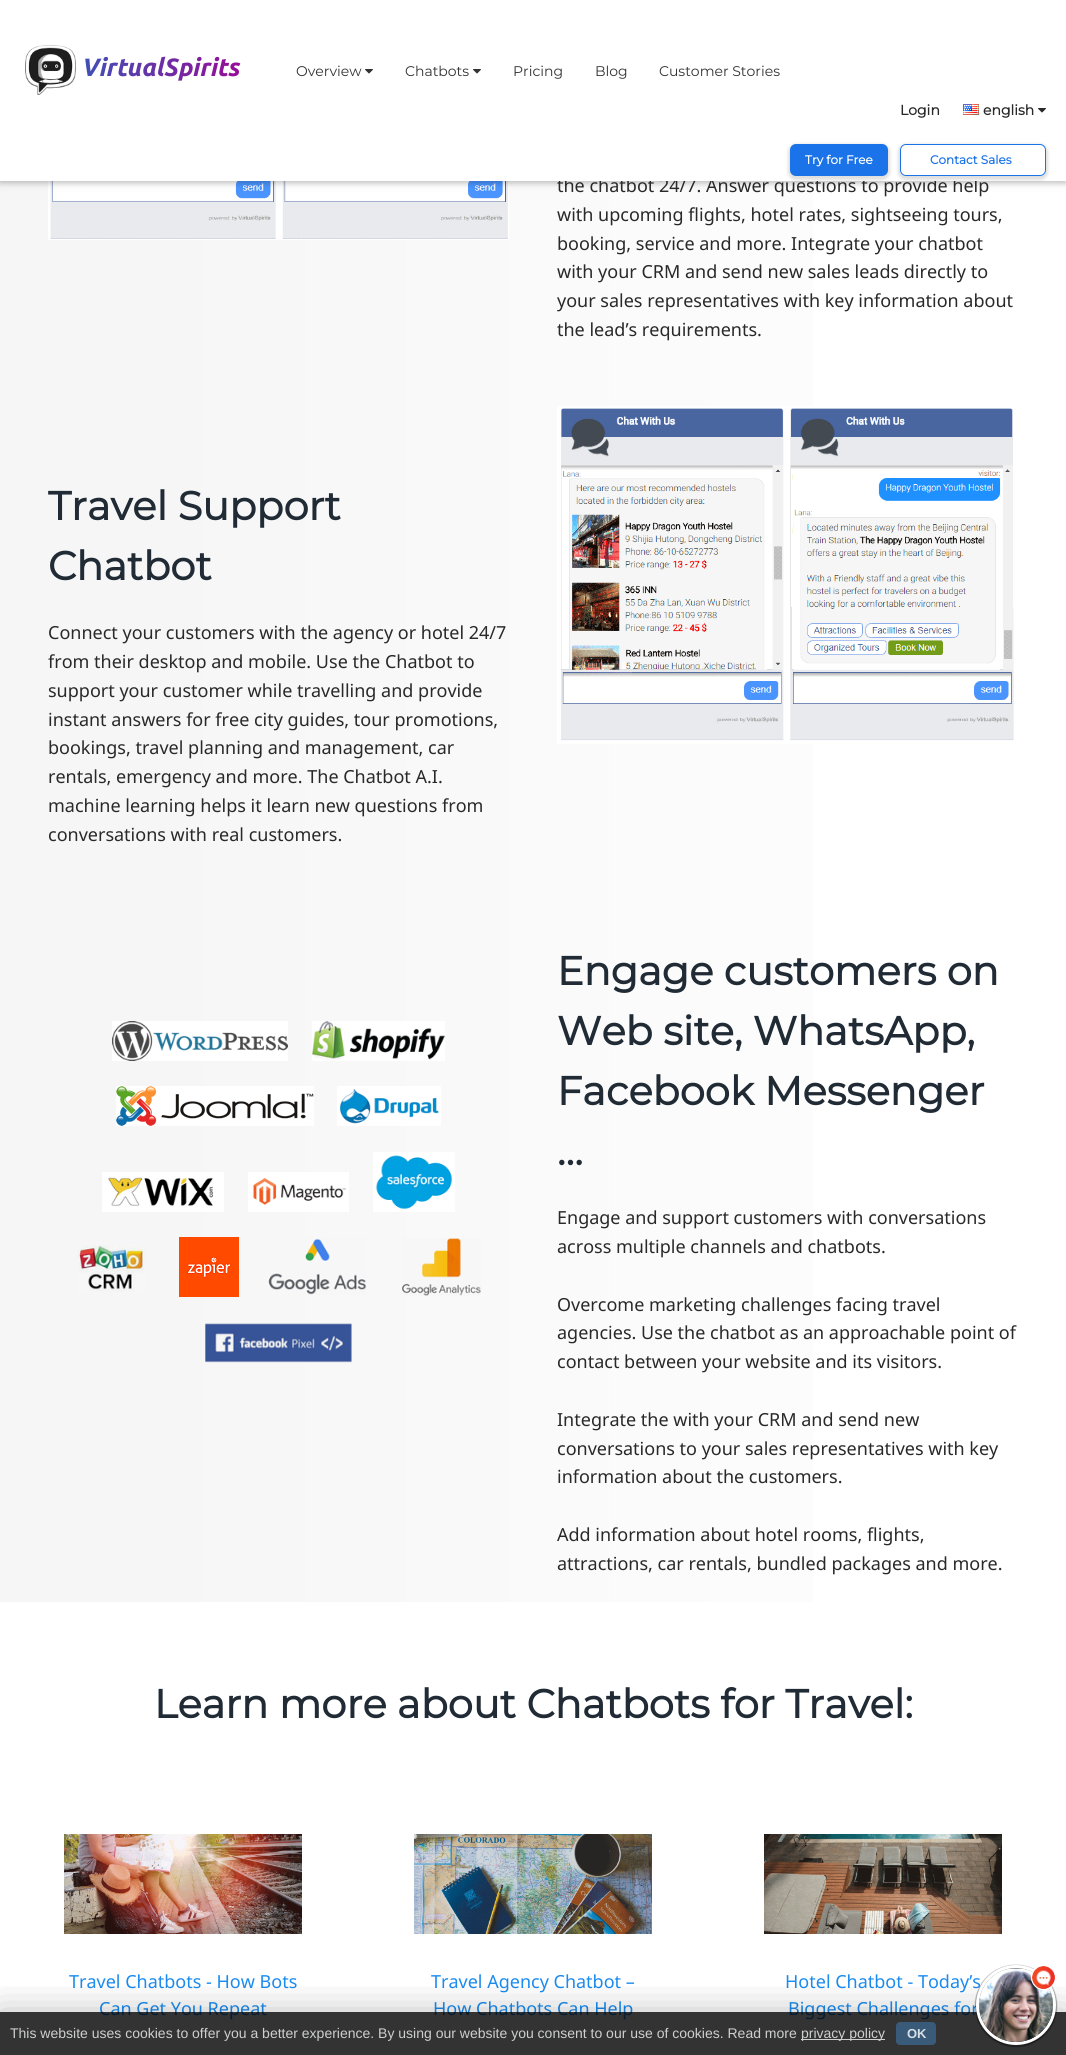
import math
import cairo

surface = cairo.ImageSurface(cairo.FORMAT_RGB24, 1066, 2055)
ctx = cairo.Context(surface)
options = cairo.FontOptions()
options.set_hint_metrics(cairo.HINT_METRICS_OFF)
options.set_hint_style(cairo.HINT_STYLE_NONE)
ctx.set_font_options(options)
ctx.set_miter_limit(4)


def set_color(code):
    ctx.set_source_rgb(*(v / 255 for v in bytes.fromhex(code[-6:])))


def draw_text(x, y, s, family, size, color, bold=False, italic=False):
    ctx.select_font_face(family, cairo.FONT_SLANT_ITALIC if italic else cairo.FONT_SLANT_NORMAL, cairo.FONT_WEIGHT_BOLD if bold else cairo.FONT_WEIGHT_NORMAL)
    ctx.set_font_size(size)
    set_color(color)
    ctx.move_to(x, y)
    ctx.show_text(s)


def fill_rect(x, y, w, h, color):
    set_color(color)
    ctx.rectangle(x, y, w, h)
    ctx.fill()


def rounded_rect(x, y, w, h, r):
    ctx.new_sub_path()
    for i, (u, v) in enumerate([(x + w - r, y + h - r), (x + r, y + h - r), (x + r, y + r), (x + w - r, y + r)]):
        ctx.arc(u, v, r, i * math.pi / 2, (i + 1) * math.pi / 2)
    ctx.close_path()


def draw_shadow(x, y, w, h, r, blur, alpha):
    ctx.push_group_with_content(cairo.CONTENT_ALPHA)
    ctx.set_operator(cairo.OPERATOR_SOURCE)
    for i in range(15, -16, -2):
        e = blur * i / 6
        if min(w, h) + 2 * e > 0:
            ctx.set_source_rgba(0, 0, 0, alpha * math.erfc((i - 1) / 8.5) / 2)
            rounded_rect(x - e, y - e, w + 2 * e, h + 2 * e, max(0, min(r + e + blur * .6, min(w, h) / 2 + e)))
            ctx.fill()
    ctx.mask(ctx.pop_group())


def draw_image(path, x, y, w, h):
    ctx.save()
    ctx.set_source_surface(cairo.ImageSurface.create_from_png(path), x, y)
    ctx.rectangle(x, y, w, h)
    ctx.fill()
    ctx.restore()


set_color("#ffffff")
ctx.paint()
gradient = cairo.LinearGradient(0, 691, 1066, 691)
gradient.add_color_stop_rgba(0, 0.965, 0.965, 0.965, 1)
gradient.add_color_stop_rgba(0.15, 0.965, 0.965, 0.965, 1)
gradient.add_color_stop_rgba(1, 1, 1, 1, 1)
ctx.set_source(gradient)
ctx.rectangle(0, 181, 814, 1421)
ctx.fill()
draw_image("assets/img5.png", 48, 181, 461, 59)
set_color("#000000")
draw_shadow(0, 2, 1066, 181, 0, 5, 0.12)
draw_shadow(0, 2, 1066, 181, 0, 2.5, 0.16)
draw_text(557, 192, "the chatbot 24/7. Answer questions to provide help", "Noto Sans", 18, "#292929")
fill_rect(0, 0, 1066, 181, "#ffffff")
draw_image("assets/img1.png", 25, 45, 51, 50)
ctx.select_font_face("Ubuntu", cairo.FONT_SLANT_ITALIC, cairo.FONT_WEIGHT_BOLD)
ctx.set_font_size(25)
gradient = cairo.LinearGradient(81, 67, 240, 67)
gradient.add_color_stop_rgba(0, 0.247, 0.318, 0.71, 1)
gradient.add_color_stop_rgba(1, 0.592, 0.051, 0.596, 1)
ctx.set_source(gradient)
ctx.move_to(81, 76)
ctx.show_text("VirtualSpirits")
draw_text(296, 76, "Overview", "Montserrat Thin", 14, "#333333")
draw_image("assets/img2.png", 365, 69, 8, 5)
draw_text(405, 76, "Chatbots", "Montserrat Thin", 14, "#333333")
draw_image("assets/img2.png", 473, 69, 8, 5)
draw_text(513, 76, "Pricing", "Montserrat Thin", 14, "#333333")
draw_text(595, 76, "Blog", "Montserrat Thin", 14, "#333333")
draw_text(659, 76, "Customer Stories", "Montserrat Thin", 14, "#333333")
draw_text(900, 115, "Login", "Montserrat", 14, "#292929", bold=True)
draw_image("assets/img3.png", 963, 104, 16, 11)
draw_text(983, 115, "english", "Montserrat", 14, "#292929", bold=True)
draw_image("assets/img4.png", 1038, 108, 8, 5)
set_color("#292929")
draw_shadow(788, 144, 102, 36, 8, 1.5, 0.15)
set_color("#1a73e8")
rounded_rect(790, 144, 98, 32, 6)
ctx.fill()
draw_text(805, 164, "Try for Free", "Montserrat", 12, "#ffffff", bold=True)
ctx.save()
ctx.set_fill_rule(cairo.FILL_RULE_EVEN_ODD)
ctx.new_path()
ctx.move_to(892, 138)
ctx.line_to(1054, 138)
ctx.line_to(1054, 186)
ctx.line_to(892, 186)
ctx.close_path()
ctx.move_to(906, 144)
ctx.line_to(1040, 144)
ctx.curve_to(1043.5, 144, 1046, 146.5, 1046, 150)
ctx.line_to(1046, 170)
ctx.curve_to(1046, 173.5, 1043.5, 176, 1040, 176)
ctx.line_to(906, 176)
ctx.curve_to(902.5, 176, 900, 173.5, 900, 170)
ctx.line_to(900, 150)
ctx.curve_to(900, 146.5, 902.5, 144, 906, 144)
ctx.close_path()
ctx.clip()
set_color("#292929")
draw_shadow(898, 144, 150, 36, 8, 1.5, 0.15)
ctx.restore()
rounded_rect(900.5, 144.5, 145, 31, 5.5)
set_color("#1a73e8")
ctx.set_line_width(1)
ctx.stroke()
draw_text(930, 164, "Contact Sales", "Montserrat", 12, "#1a73e8", bold=True)
draw_text(557, 221, "with upcoming flights, hotel rates, sightseeing tours,", "Noto Sans", 18, "#292929")
draw_text(557, 250, "booking, service and more. Integrate your chatbot", "Noto Sans", 18, "#292929")
draw_text(557, 278, "with your CRM and send new sales leads directly to", "Noto Sans", 18, "#292929")
draw_text(557, 307, "your sales representatives with key information about", "Noto Sans", 18, "#292929")
draw_text(557, 336, "the lead’s requirements.", "Noto Sans", 18, "#292929")
draw_text(48, 520, "Travel Support", "Montserrat", 40, "#212b35", bold=True)
draw_text(48, 580, "Chatbot", "Montserrat", 40, "#212b35", bold=True)
draw_text(48, 639, "Connect your customers with the agency or hotel 24/7", "Noto Sans", 18, "#292929")
draw_text(48, 668, "from their desktop and mobile. Use the Chatbot to", "Noto Sans", 18, "#292929")
draw_text(48, 697, "support your customer while travelling and provide", "Noto Sans", 18, "#292929")
draw_text(48, 726, "instant answers for free city guides, tour promotions,", "Noto Sans", 18, "#292929")
draw_text(48, 754, "bookings, travel planning and management, car", "Noto Sans", 18, "#292929")
draw_text(48, 783, "rentals, emergency and more. The Chatbot A.I.", "Noto Sans", 18, "#292929")
draw_text(48, 812, "machine learning helps it learn new questions from", "Noto Sans", 18, "#292929")
draw_text(48, 841, "conversations with real customers.", "Noto Sans", 18, "#292929")
draw_image("assets/img6.png", 557, 406, 457, 338)
draw_image("assets/img7.png", 112, 1021, 176, 40)
draw_image("assets/img8.png", 312, 1021, 133, 40)
draw_image("assets/img9.png", 116, 1086, 198, 40)
draw_image("assets/img10.png", 337, 1086, 104, 40)
draw_image("assets/img11.png", 102, 1172, 122, 40)
draw_image("assets/img12.png", 248, 1172, 101, 40)
draw_image("assets/img13.png", 373, 1152, 82, 60)
draw_image("assets/img14.png", 77, 1245, 68, 47)
draw_image("assets/img15.png", 179, 1237, 60, 60)
draw_image("assets/img16.png", 268, 1238, 99, 57)
draw_image("assets/img17.png", 402, 1238, 79, 58)
draw_image("assets/img18.png", 205, 1323, 147, 40)
draw_text(557, 985, "Engage customers on", "Montserrat", 40, "#212b35", bold=True)
draw_text(557, 1045, "Web site, WhatsApp,", "Montserrat", 40, "#212b35", bold=True)
draw_text(557, 1105, "Facebook Messenger", "Montserrat", 40, "#212b35", bold=True)
draw_text(557, 1165, "…", "Montserrat", 40, "#212b35", bold=True)
draw_text(557, 1224, "Engage and support customers with conversations", "Noto Sans", 18, "#292929")
draw_text(557, 1253, "across multiple channels and chatbots.", "Noto Sans", 18, "#292929")
draw_text(557, 1311, "Overcome marketing challenges facing travel", "Noto Sans", 18, "#292929")
draw_text(557, 1339, "agencies. Use the chatbot as an approachable point of", "Noto Sans", 18, "#292929")
draw_text(557, 1368, "contact between your website and its visitors.", "Noto Sans", 18, "#292929")
draw_text(557, 1426, "Integrate the with your CRM and send new", "Noto Sans", 18, "#292929")
draw_text(557, 1455, "conversations to your sales representatives with key", "Noto Sans", 18, "#292929")
draw_text(557, 1483, "information about the customers.", "Noto Sans", 18, "#292929")
draw_text(557, 1541, "Add information about hotel rooms, flights,", "Noto Sans", 18, "#292929")
draw_text(557, 1570, "attractions, car rentals, bundled packages and more.", "Noto Sans", 18, "#292929")
draw_text(154, 1718, "Learn more about Chatbots for Travel:", "Montserrat", 40, "#212b35", bold=True)
draw_image("assets/img19.png", 64, 1834, 238, 100)
draw_text(69, 1988, "Travel Chatbots - How Bots", "Noto Sans", 18, "#1a8bf0")
draw_text(99, 2015, "Can Get You Repeat", "Noto Sans", 18, "#1a8bf0")
draw_image("assets/img20.png", 414, 1834, 238, 100)
draw_text(431, 1988, "Travel Agency Chatbot –", "Noto Sans", 18, "#1a8bf0")
draw_text(433, 2015, "How Chatbots Can Help", "Noto Sans", 18, "#1a8bf0")
draw_image("assets/img21.png", 764, 1834, 238, 100)
draw_text(785, 1988, "Hotel Chatbot - Today’s", "Noto Sans", 18, "#1a8bf0")
draw_text(788, 2015, "Biggest Challenges for", "Noto Sans", 18, "#1a8bf0")
ctx.save()
ctx.rectangle(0, 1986, 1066, 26)
ctx.clip()
set_color("#000000")
draw_shadow(-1, 2017, 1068, 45, 0, 20, 0.32)
ctx.restore()
ctx.set_source_rgba(0, 0, 0, 0.8)
ctx.rectangle(0, 2012, 1066, 43)
ctx.fill()
draw_text(10, 2038, "This website uses cookies to offer you a better experience. By using our website you consent to our use of cookies. Read more", "Liberation Sans", 14, "#cecfcf")
ctx.set_source_rgba(0.965, 0.965, 0.965, 0.8)
ctx.rectangle(801, 2039, 84, 1)
ctx.fill()
draw_text(801, 2038, "privacy policy", "Liberation Sans", 14, "#cecfcf")
ctx.set_source_rgba(0.239, 0.392, 0.549, 0.8)
rounded_rect(896, 2022, 40, 23, 4)
ctx.fill()
draw_text(907, 2038, "OK", "Liberation Sans", 13, "#d7dee4", bold=True)
set_color("#000000")
draw_shadow(975, 1965, 82, 82, 41, 0.5, 0.4)
ctx.arc(1016, 2005, 38.5, 0, 2 * math.pi)
set_color("#ffffff")
ctx.set_line_width(3)
ctx.stroke()
draw_image("assets/img22.png", 979, 1969, 74, 73)
ctx.arc(1043.5, 1977.5, 12, 0, 2 * math.pi)
ctx.fill_preserve()
ctx.set_line_width(1)
ctx.stroke()
draw_image("assets/img23.png", 1032, 1966, 23, 23)
surface.write_to_png("output.png")
